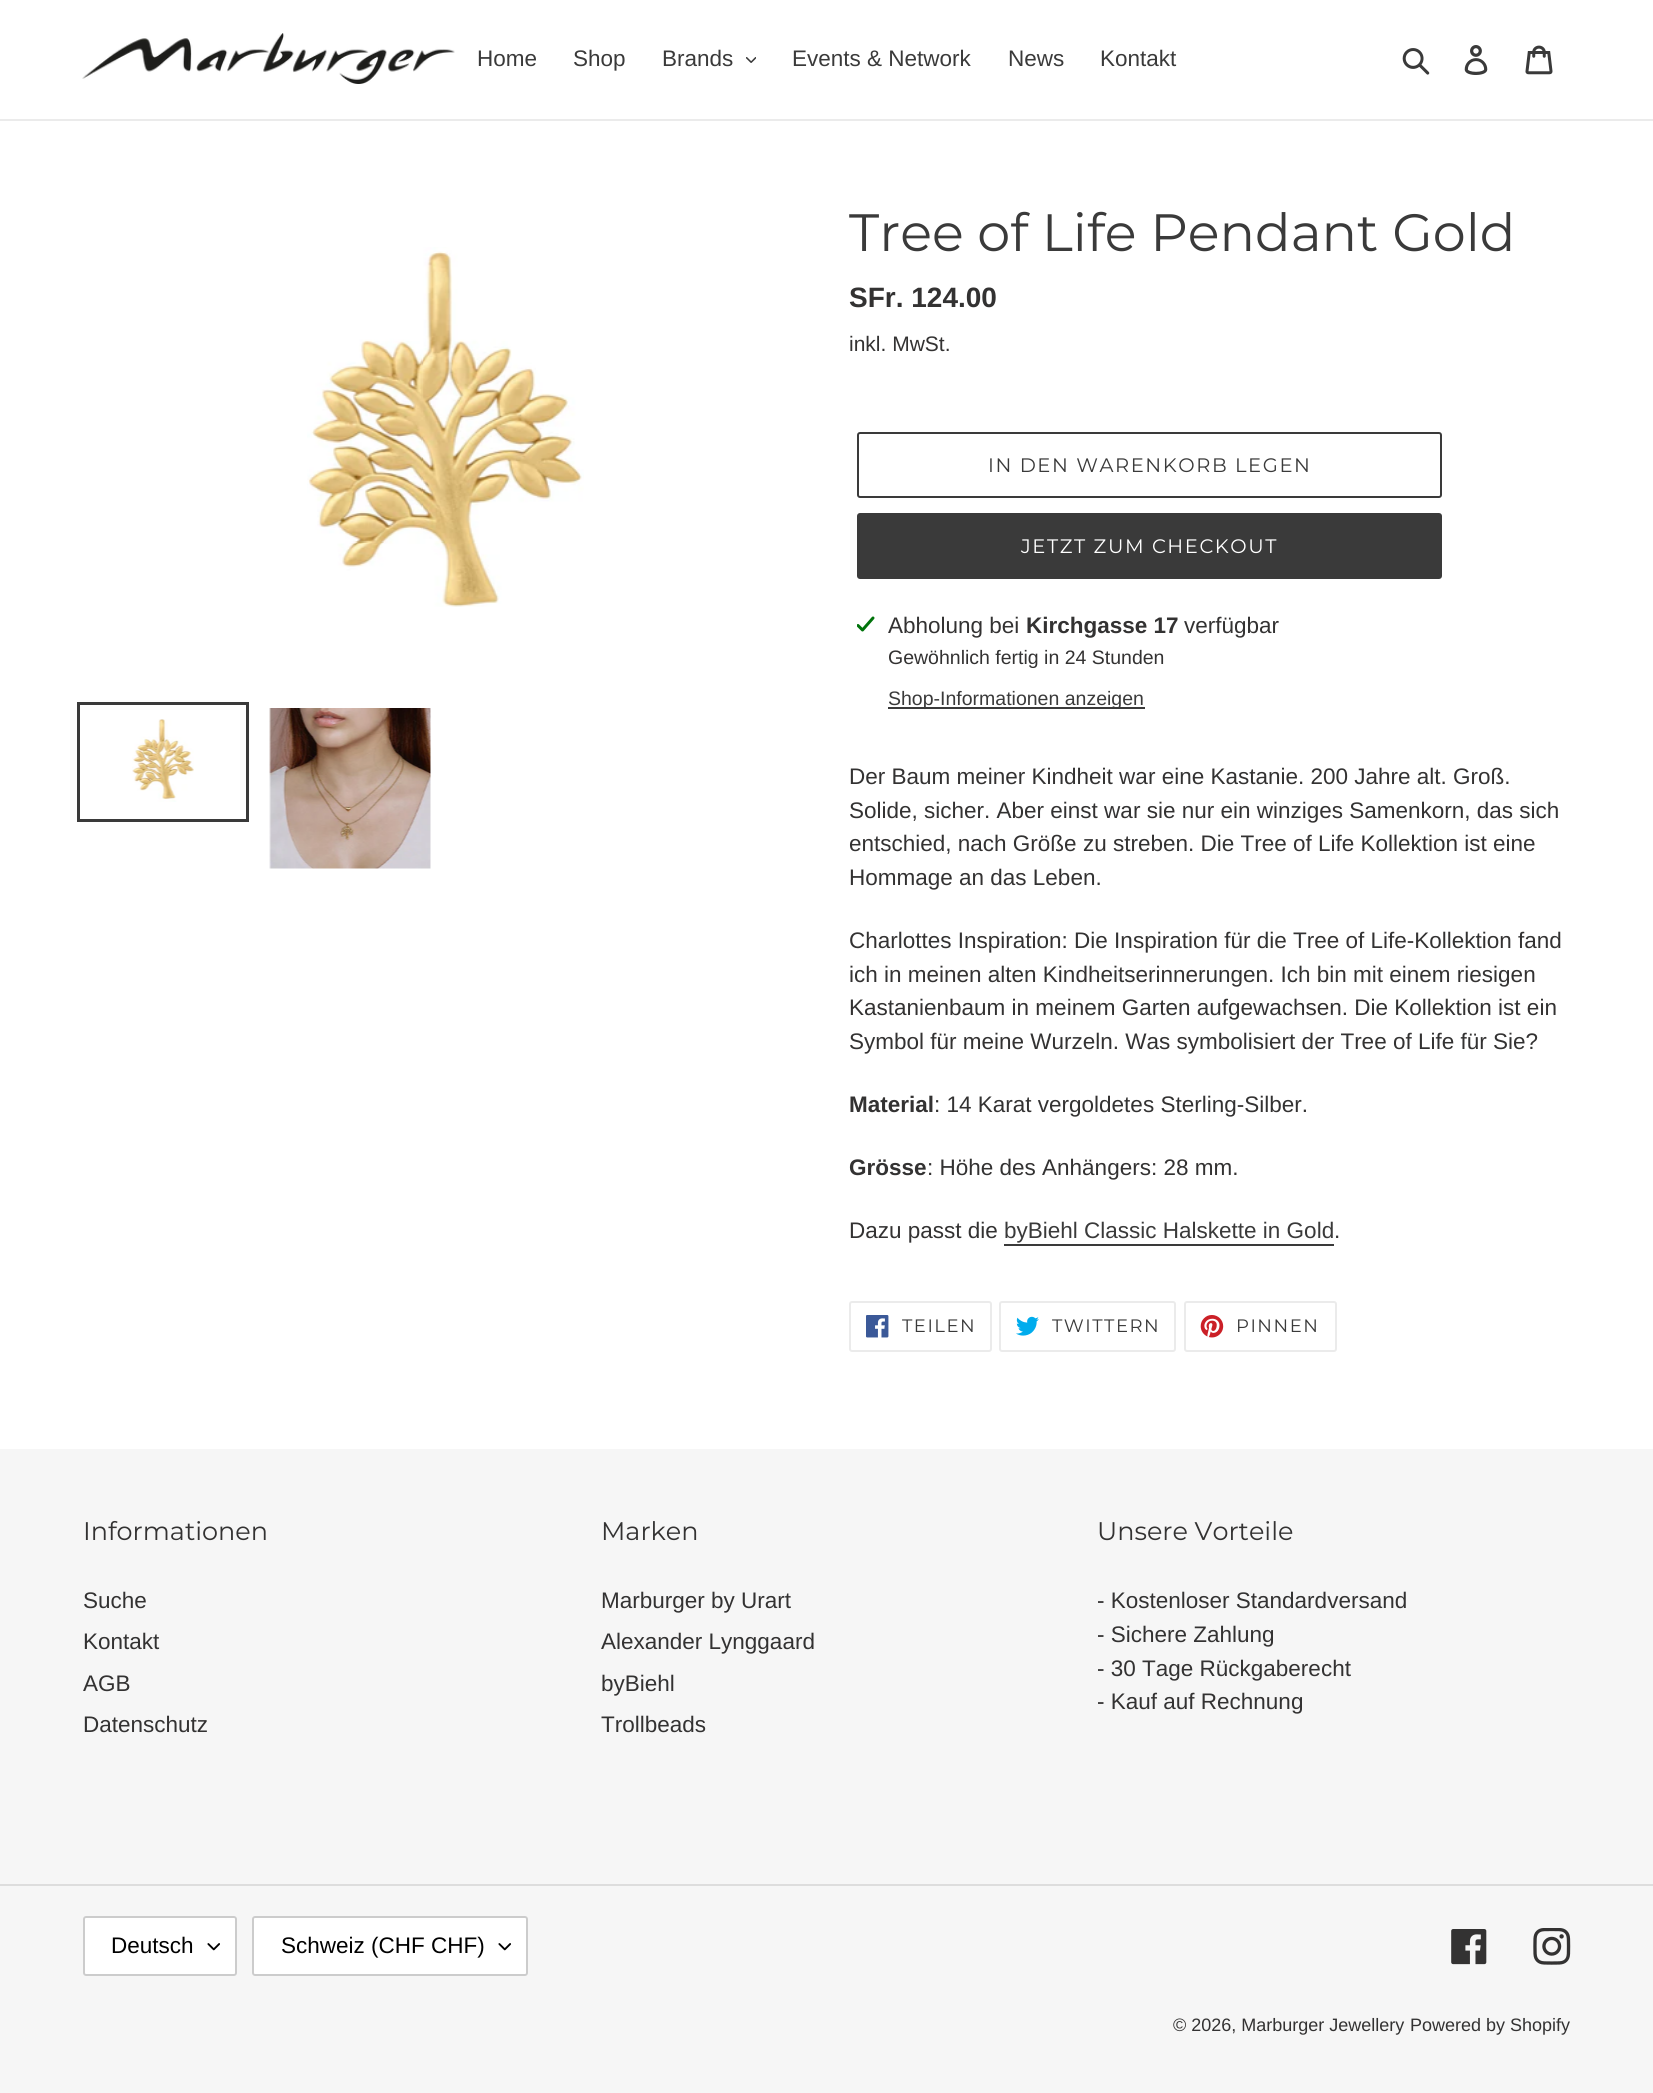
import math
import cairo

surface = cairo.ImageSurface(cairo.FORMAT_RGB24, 1653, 2093)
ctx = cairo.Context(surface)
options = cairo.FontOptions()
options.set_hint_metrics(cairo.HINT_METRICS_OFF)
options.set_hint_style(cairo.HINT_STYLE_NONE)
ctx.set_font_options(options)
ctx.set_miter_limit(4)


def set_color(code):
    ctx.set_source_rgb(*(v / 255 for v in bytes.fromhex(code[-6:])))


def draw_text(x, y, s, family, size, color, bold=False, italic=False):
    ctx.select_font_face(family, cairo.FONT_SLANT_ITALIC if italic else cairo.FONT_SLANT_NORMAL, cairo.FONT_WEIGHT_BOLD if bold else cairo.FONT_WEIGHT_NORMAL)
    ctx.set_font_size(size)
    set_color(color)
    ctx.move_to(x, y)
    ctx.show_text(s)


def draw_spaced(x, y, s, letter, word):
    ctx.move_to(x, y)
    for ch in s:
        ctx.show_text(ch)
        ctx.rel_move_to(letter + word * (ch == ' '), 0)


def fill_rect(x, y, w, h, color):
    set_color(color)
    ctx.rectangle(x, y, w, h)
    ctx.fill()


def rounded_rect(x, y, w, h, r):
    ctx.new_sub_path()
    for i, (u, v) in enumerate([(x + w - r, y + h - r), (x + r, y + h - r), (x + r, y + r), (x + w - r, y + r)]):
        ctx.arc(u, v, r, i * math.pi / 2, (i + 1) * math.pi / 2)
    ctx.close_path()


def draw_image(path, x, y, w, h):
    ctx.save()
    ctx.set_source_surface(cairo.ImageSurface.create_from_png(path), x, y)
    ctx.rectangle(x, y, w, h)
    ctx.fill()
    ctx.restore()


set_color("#ffffff")
ctx.paint()
fill_rect(0, 119, 1653, 2, "#ebebeb")
draw_image("assets/img1.png", 82, 33, 373, 51)
draw_text(477, 66, "Home", "Liberation Sans", 22.5, "#3a3a3a")
draw_text(573, 66, "Shop", "Liberation Sans", 22.5, "#3a3a3a")
draw_text(662, 66, "Brands", "Liberation Sans", 22.5, "#3a3a3a")
draw_image("assets/img2.png", 746, 57, 10, 6)
draw_text(792, 66, "Events & Network", "Liberation Sans", 22.5, "#3a3a3a")
draw_text(1008, 66, "News", "Liberation Sans", 22.5, "#3a3a3a")
draw_text(1100, 66, "Kontakt", "Liberation Sans", 22.5, "#3a3a3a")
draw_image("assets/img3.png", 1402, 48, 28, 27)
draw_image("assets/img4.png", 1464, 45, 24, 30)
draw_image("assets/img5.png", 1525, 45, 28, 30)
draw_image("assets/img6.png", 307, 247, 277, 360)
ctx.rectangle(78.5, 703.5, 169, 117)
ctx.set_line_width(3)
ctx.stroke()
draw_image("assets/img7.png", 132, 719, 62, 83)
draw_image("assets/img8.png", 269, 708, 162, 161)
draw_text(849, 251, "Tree of Life Pendant Gold", "Montserrat", 52.5, "#3a3a3a")
draw_text(849, 307, "SFr. 124.00", "Liberation Sans", 28, "#333232", bold=True)
draw_text(849, 351, "inkl. MwSt.", "Liberation Sans", 21, "#333232")
rounded_rect(858, 433, 583, 64, 2)
set_color("#3a3a3a")
ctx.set_line_width(2)
ctx.stroke()
ctx.select_font_face("Montserrat")
ctx.set_font_size(19.5)
draw_spaced(988, 472, "IN DEN WARENKORB LEGEN", 1.6, 0)
rounded_rect(857, 513, 585, 66, 3)
ctx.fill()
set_color("#ffffff")
draw_spaced(1021, 553, "JETZT ZUM CHECKOUT", 1.6, 0)
draw_image("assets/img9.png", 857, 616, 18, 16)
draw_text(888, 633, "Abholung bei", "Liberation Sans", 22.5, "#333232")
draw_text(1026, 633, "Kirchgasse 17", "Liberation Sans", 22.5, "#333232", bold=True)
draw_text(1184, 633, "verfügbar", "Liberation Sans", 22.5, "#333232")
draw_text(888, 664, "Gewöhnlich fertig in 24 Stunden", "Liberation Sans", 19.5, "#333232")
fill_rect(888, 707, 257, 2, "#3a3a3a")
draw_text(888, 705, "Shop-Informationen anzeigen", "Liberation Sans", 19.5, "#3a3a3a")
draw_text(849, 784, "Der Baum meiner Kindheit war eine Kastanie. 200 Jahre alt. Groß.", "Liberation Sans", 22.5, "#333232")
draw_text(849, 818, "Solide, sicher. Aber einst war sie nur ein winziges Samenkorn, das sich", "Liberation Sans", 22.5, "#333232")
draw_text(849, 851, "entschied, nach Größe zu streben. Die Tree of Life Kollektion ist eine", "Liberation Sans", 22.5, "#333232")
draw_text(849, 885, "Hommage an das Leben.", "Liberation Sans", 22.5, "#333232")
draw_text(849, 948, "Charlottes Inspiration: Die Inspiration für die Tree of Life-Kollektion fand", "Liberation Sans", 22.5, "#333232")
draw_text(849, 982, "ich in meinen alten Kindheitserinnerungen. Ich bin mit einem riesigen", "Liberation Sans", 22.5, "#333232")
draw_text(849, 1015, "Kastanienbaum in meinem Garten aufgewachsen. Die Kollektion ist ein", "Liberation Sans", 22.5, "#333232")
draw_text(849, 1049, "Symbol für meine Wurzeln. Was symbolisiert der Tree of Life für Sie?", "Liberation Sans", 22.5, "#333232")
draw_text(849, 1112, "Material", "Liberation Sans", 22.5, "#333232", bold=True)
draw_text(934, 1112, ": 14 Karat vergoldetes Sterling-Silber.", "Liberation Sans", 22.5, "#333232")
draw_text(849, 1175, "Grösse", "Liberation Sans", 22.5, "#333232", bold=True)
draw_text(927, 1175, ": Höhe des Anhängers: 28 mm.", "Liberation Sans", 22.5, "#333232")
draw_text(849, 1238, "Dazu passt die", "Liberation Sans", 22.5, "#333232")
draw_text(1004, 1238, "byBiehl Classic Halskette in Gold", "Liberation Sans", 22.5, "#3a3a3a")
fill_rect(1004, 1244, 330, 2, "#3a3a3a")
draw_text(1334, 1238, ".", "Liberation Sans", 22.5, "#333232")
rounded_rect(850, 1302, 141, 49, 2)
set_color("#ebebeb")
ctx.stroke()
draw_image("assets/img10.png", 866, 1315, 23, 23)
ctx.select_font_face("Montserrat")
ctx.set_font_size(18)
set_color("#3a3a3a")
draw_spaced(902, 1332, "TEILEN", 1.5, 0)
rounded_rect(1000, 1302, 175, 49, 2)
set_color("#ebebeb")
ctx.stroke()
draw_image("assets/img11.png", 1016, 1316, 23, 20)
set_color("#3a3a3a")
draw_spaced(1052, 1332, "TWITTERN", 1.5, 0)
rounded_rect(1185, 1302, 151, 49, 2)
set_color("#ebebeb")
ctx.stroke()
draw_image("assets/img12.png", 1200, 1315, 24, 23)
set_color("#3a3a3a")
draw_spaced(1236, 1332, "PINNEN", 1.5, 0)
fill_rect(0, 1449, 1653, 644, "#f6f6f6")
draw_text(83, 1540, "Informationen", "Montserrat", 25.5, "#333232")
draw_text(83, 1608, "Suche", "Liberation Sans", 22.5, "#333232")
draw_text(83, 1649, "Kontakt", "Liberation Sans", 22.5, "#333232")
draw_text(83, 1691, "AGB", "Liberation Sans", 22.5, "#333232")
draw_text(83, 1732, "Datenschutz", "Liberation Sans", 22.5, "#333232")
draw_text(601, 1540, "Marken", "Montserrat", 25.5, "#333232")
draw_text(601, 1608, "Marburger by Urart", "Liberation Sans", 22.5, "#333232")
draw_text(601, 1649, "Alexander Lynggaard", "Liberation Sans", 22.5, "#333232")
draw_text(601, 1691, "byBiehl", "Liberation Sans", 22.5, "#333232")
draw_text(601, 1732, "Trollbeads", "Liberation Sans", 22.5, "#333232")
draw_text(1097, 1540, "Unsere Vorteile", "Montserrat", 25.5, "#333232")
draw_text(1097, 1608, "- Kostenloser Standardversand", "Liberation Sans", 22.5, "#333232")
draw_text(1097, 1642, "- Sichere Zahlung", "Liberation Sans", 22.5, "#333232")
draw_text(1097, 1676, "- 30 Tage Rückgaberecht", "Liberation Sans", 22.5, "#333232")
draw_text(1097, 1709, "- Kauf auf Rechnung", "Liberation Sans", 22.5, "#333232")
fill_rect(0, 1884, 1653, 2, "#dddddd")
set_color("#ffffff")
rounded_rect(83, 1916, 154, 60, 3)
ctx.fill()
draw_image("assets/img13.png", 207, 1943, 13, 8)
rounded_rect(84, 1917, 152, 58, 2)
set_color("#cccccc")
ctx.stroke()
draw_text(111, 1953, "Deutsch", "Liberation Sans", 22.5, "#000000")
set_color("#ffffff")
rounded_rect(252, 1916, 276, 60, 3)
ctx.fill()
draw_image("assets/img13.png", 498, 1943, 13, 8)
rounded_rect(253, 1917, 274, 58, 2)
set_color("#cccccc")
ctx.stroke()
draw_text(281, 1953, "Schweiz (CHF CHF)", "Liberation Sans", 22.5, "#000000")
draw_image("assets/img14.png", 1451, 1929, 36, 36)
draw_image("assets/img15.png", 1533, 1928, 38, 37)
draw_text(1173, 2031, "© 2026, Marburger Jewellery", "Liberation Sans", 18, "#333232")
draw_text(1410, 2031, "Powered by Shopify", "Liberation Sans", 18, "#333232")
surface.write_to_png("output.png")
